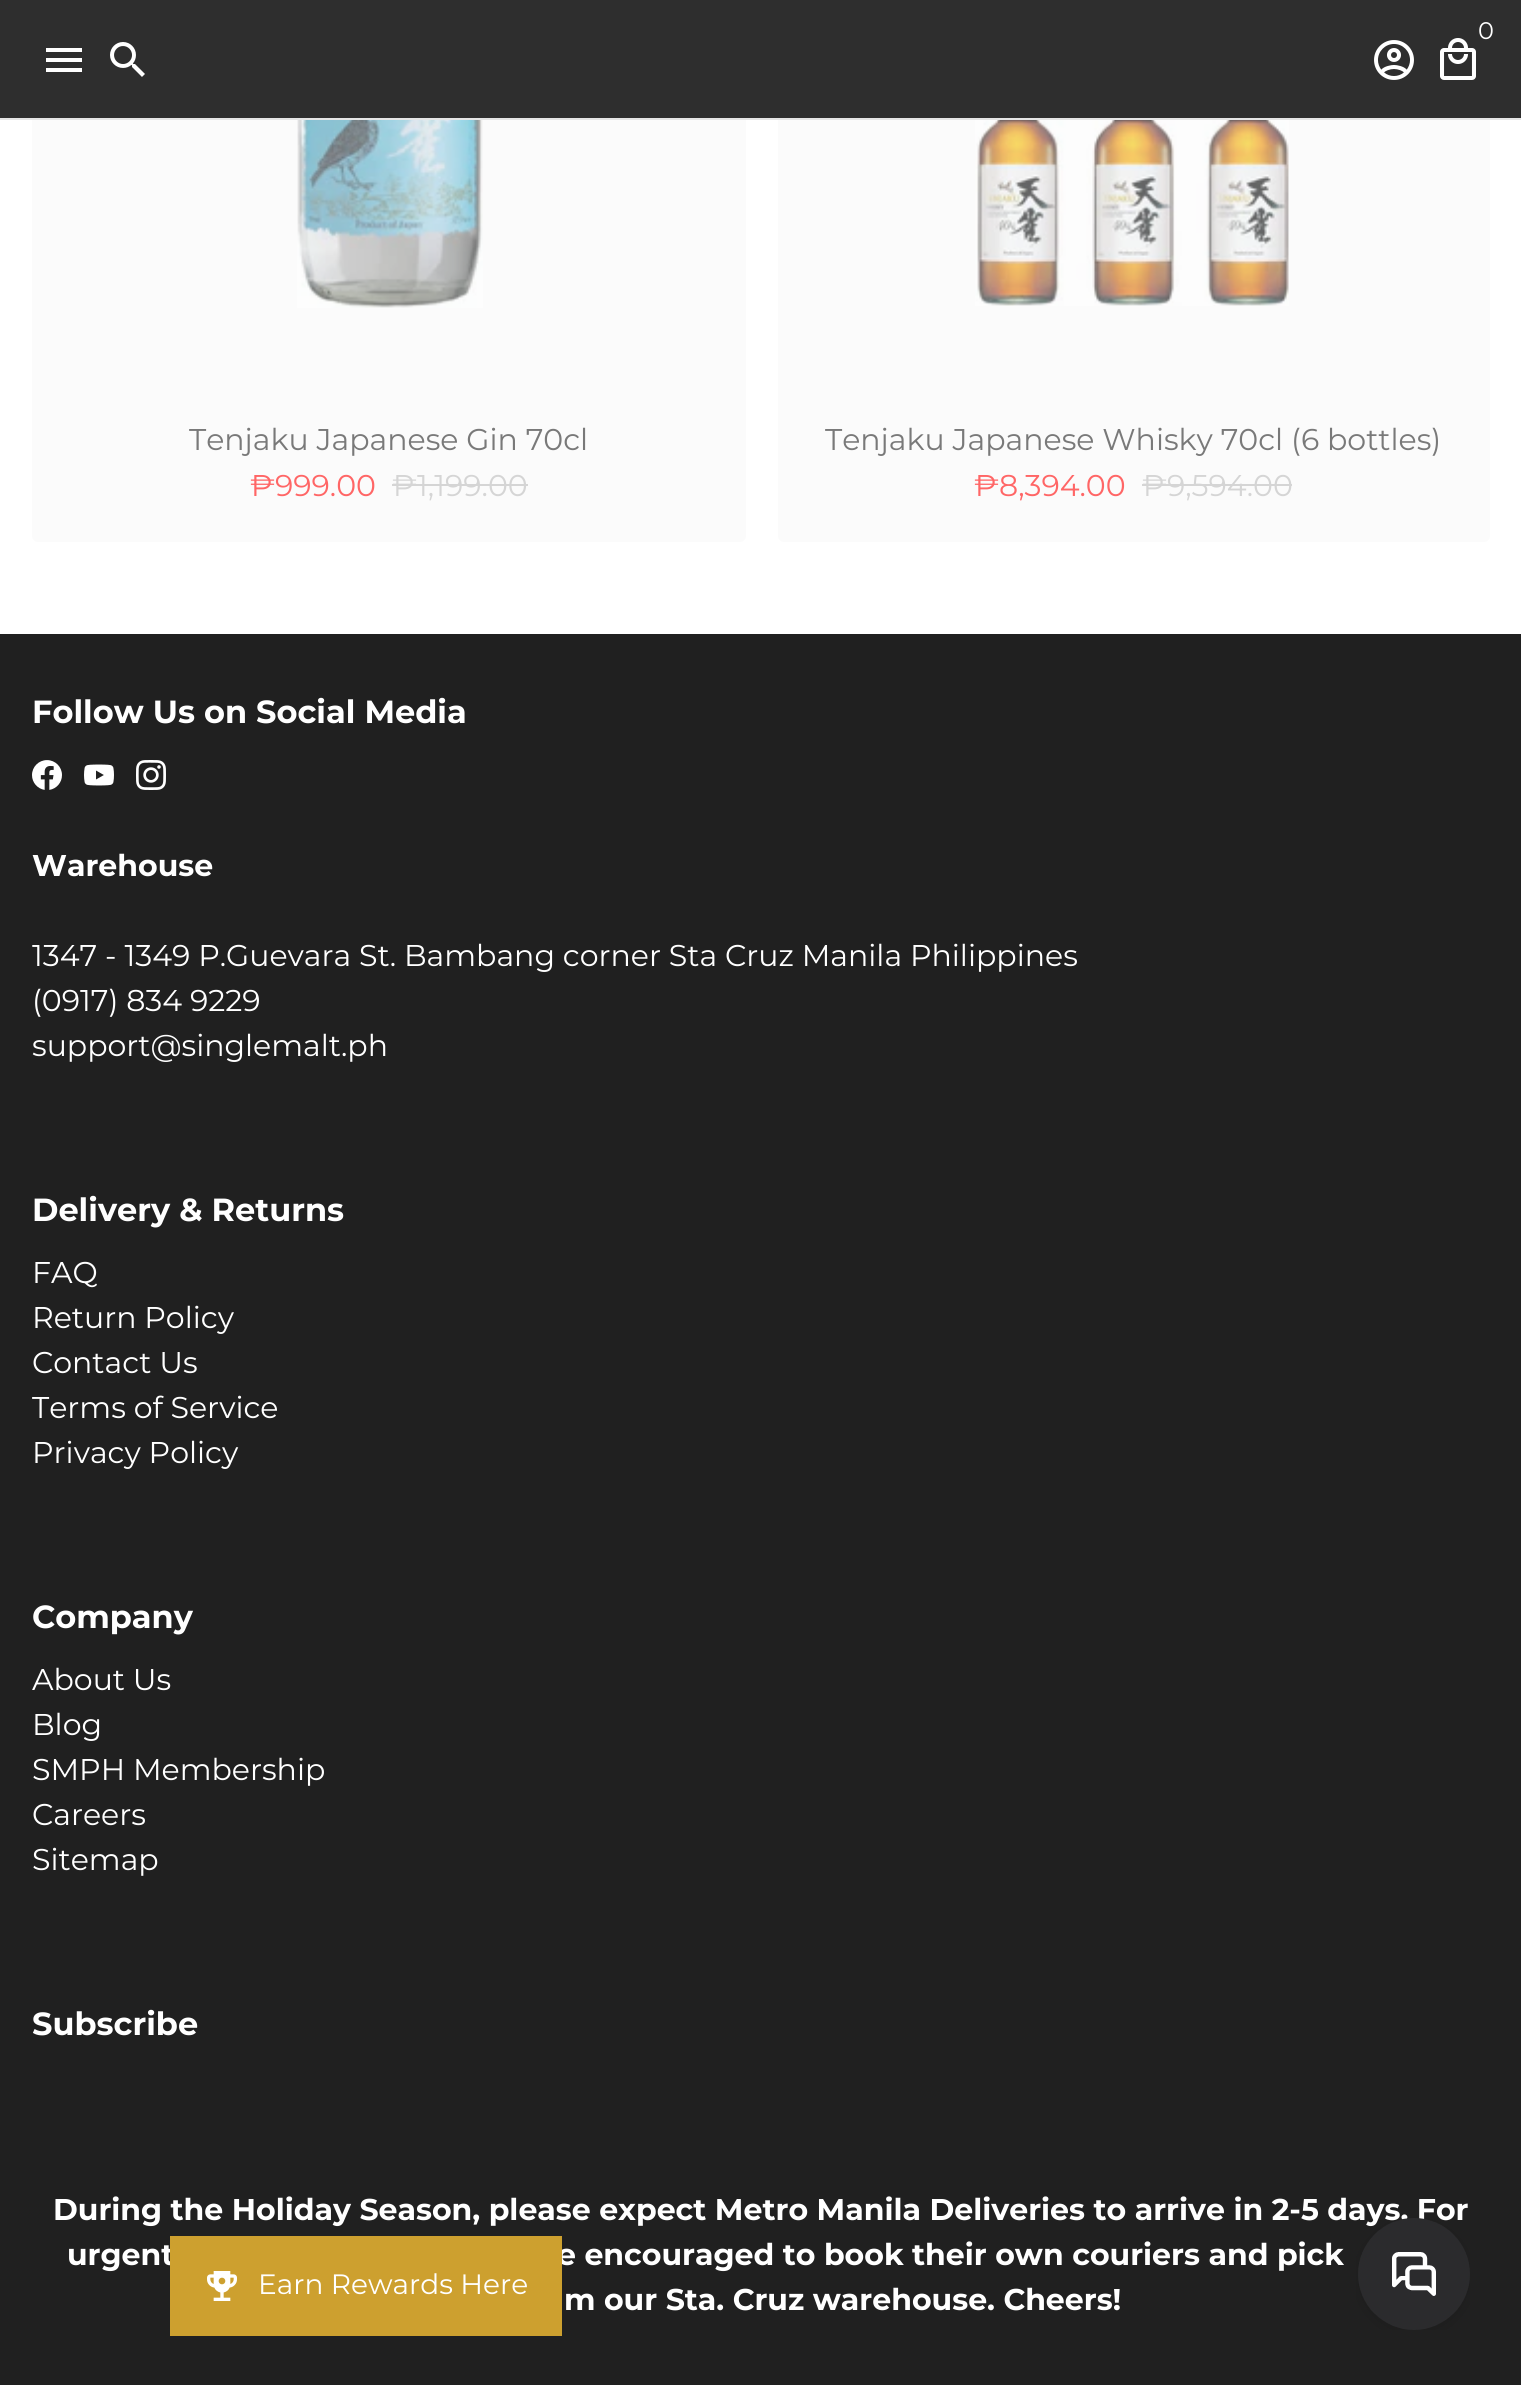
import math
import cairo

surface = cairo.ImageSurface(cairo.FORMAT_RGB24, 1521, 2385)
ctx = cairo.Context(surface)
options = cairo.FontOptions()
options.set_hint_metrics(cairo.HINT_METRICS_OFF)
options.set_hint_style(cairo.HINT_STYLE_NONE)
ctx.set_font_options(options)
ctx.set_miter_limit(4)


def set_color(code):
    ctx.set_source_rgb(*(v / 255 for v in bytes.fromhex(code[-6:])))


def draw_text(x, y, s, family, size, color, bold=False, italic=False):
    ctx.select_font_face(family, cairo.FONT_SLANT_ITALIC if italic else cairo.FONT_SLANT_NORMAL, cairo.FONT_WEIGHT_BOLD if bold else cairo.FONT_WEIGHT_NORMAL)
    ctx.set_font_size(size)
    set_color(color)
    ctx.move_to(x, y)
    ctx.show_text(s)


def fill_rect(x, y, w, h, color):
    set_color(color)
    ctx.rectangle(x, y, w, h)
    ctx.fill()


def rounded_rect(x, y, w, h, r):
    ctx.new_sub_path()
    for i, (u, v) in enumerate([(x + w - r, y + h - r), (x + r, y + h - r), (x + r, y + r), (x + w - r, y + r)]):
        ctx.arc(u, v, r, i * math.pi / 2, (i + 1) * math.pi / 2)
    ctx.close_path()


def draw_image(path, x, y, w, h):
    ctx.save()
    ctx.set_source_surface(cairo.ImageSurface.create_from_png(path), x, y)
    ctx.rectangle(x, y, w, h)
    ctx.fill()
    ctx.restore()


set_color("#ffffff")
ctx.paint()
set_color("#fbfbfb")
rounded_rect(32, -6, 714, 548, 6)
ctx.fill()
rounded_rect(778, -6, 712, 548, 6)
ctx.fill()
fill_rect(0, 0, 1521, 118, "#2e2e2e")
fill_rect(0, 118, 1521, 2, "#e5e5e5")
draw_text(1478, 39, "0", "Montserrat", 24, "#ffffff")
draw_image("assets/img1.png", 1440, 38, 36, 42)
draw_image("assets/img2.png", 1374, 40, 40, 40)
ctx.new_path()
ctx.move_to(46, 72)
ctx.line_to(82, 72)
ctx.line_to(82, 68)
ctx.line_to(46, 68)
ctx.close_path()
ctx.move_to(46, 62)
ctx.line_to(82, 62)
ctx.line_to(82, 58)
ctx.line_to(46, 58)
ctx.close_path()
ctx.move_to(46, 48)
ctx.line_to(46, 52)
ctx.line_to(82, 52)
ctx.line_to(82, 48)
ctx.close_path()
ctx.fill()
draw_image("assets/img3.png", 110, 42, 35, 35)
draw_image("assets/img4.png", 297, 120, 186, 188)
draw_text(189, 450, "Tenjaku Japanese Gin 70cl", "Montserrat", 30, "#797979")
draw_text(250, 496, "₱999.00", "Montserrat", 30, "#ff6666")
draw_text(392, 496, "₱1,199.00", "Montserrat", 30, "#d5d5d5")
fill_rect(392, 484, 136, 2, "#d5d5d5")
draw_image("assets/img5.png", 975, 120, 314, 186)
draw_text(825, 450, "Tenjaku Japanese Whisky 70cl (6 bottles)", "Montserrat", 30, "#797979")
draw_text(974, 496, "₱8,394.00", "Montserrat", 30, "#ff6666")
draw_text(1142, 496, "₱9,594.00", "Montserrat", 30, "#d5d5d5")
fill_rect(1142, 484, 150, 2, "#d5d5d5")
fill_rect(0, 634, 1521, 1751, "#202020")
draw_text(32, 723, "Follow Us on Social Media", "Montserrat", 32, "#ffffff", bold=True)
draw_image("assets/img6.png", 32, 760, 30, 30)
draw_image("assets/img7.png", 84, 764, 30, 22)
draw_image("assets/img8.png", 136, 760, 30, 30)
draw_text(32, 876, "Warehouse", "Montserrat", 30, "#ffffff", bold=True)
draw_text(32, 966, "1347 - 1349 P.Guevara St. Bambang corner Sta Cruz Manila Philippines", "Montserrat", 30, "#ffffff")
draw_text(32, 1011, "(0917) 834 9229", "Montserrat", 30, "#ffffff")
draw_text(32, 1056, "support@singlemalt.ph", "Montserrat", 30, "#ffffff")
draw_text(32, 1221, "Delivery & Returns", "Montserrat", 32, "#ffffff", bold=True)
draw_text(32, 1283, "FAQ", "Montserrat", 30, "#ffffff")
draw_text(32, 1328, "Return Policy", "Montserrat", 30, "#ffffff")
draw_text(32, 1373, "Contact Us", "Montserrat", 30, "#ffffff")
draw_text(32, 1418, "Terms of Service", "Montserrat", 30, "#ffffff")
draw_text(32, 1463, "Privacy Policy", "Montserrat", 30, "#ffffff")
draw_text(32, 1628, "Company", "Montserrat", 32, "#ffffff", bold=True)
draw_text(32, 1690, "About Us", "Montserrat", 30, "#ffffff")
draw_text(32, 1735, "Blog", "Montserrat", 30, "#ffffff")
draw_text(32, 1780, "SMPH Membership", "Montserrat", 30, "#ffffff")
draw_text(32, 1825, "Careers", "Montserrat", 30, "#ffffff")
draw_text(32, 1870, "Sitemap", "Montserrat", 30, "#ffffff")
draw_text(32, 2035, "Subscribe", "Montserrat", 32, "#ffffff", bold=True)
draw_text(53, 2220, "During the Holiday Season, please expect Metro Manila Deliveries to arrive in 2-5 days. For", "Montserrat", 30, "#ffffff", bold=True)
draw_text(67, 2265, "urgent", "Montserrat", 30, "#ffffff", bold=True)
draw_text(557, 2265, "e encouraged to book their own couriers and pick", "Montserrat", 30, "#ffffff", bold=True)
draw_text(564, 2310, "m our Sta. Cruz warehouse. Cheers!", "Montserrat", 30, "#ffffff", bold=True)
fill_rect(170, 2236, 392, 100, "#cda02f")
draw_image("assets/img9.png", 207, 2271, 30, 30)
draw_text(258, 2294, "Earn Rewards Here", "Montserrat", 28, "#ffffff")
draw_image("assets/img10.png", 1356, 2218, 114, 112)
surface.write_to_png("output.png")
